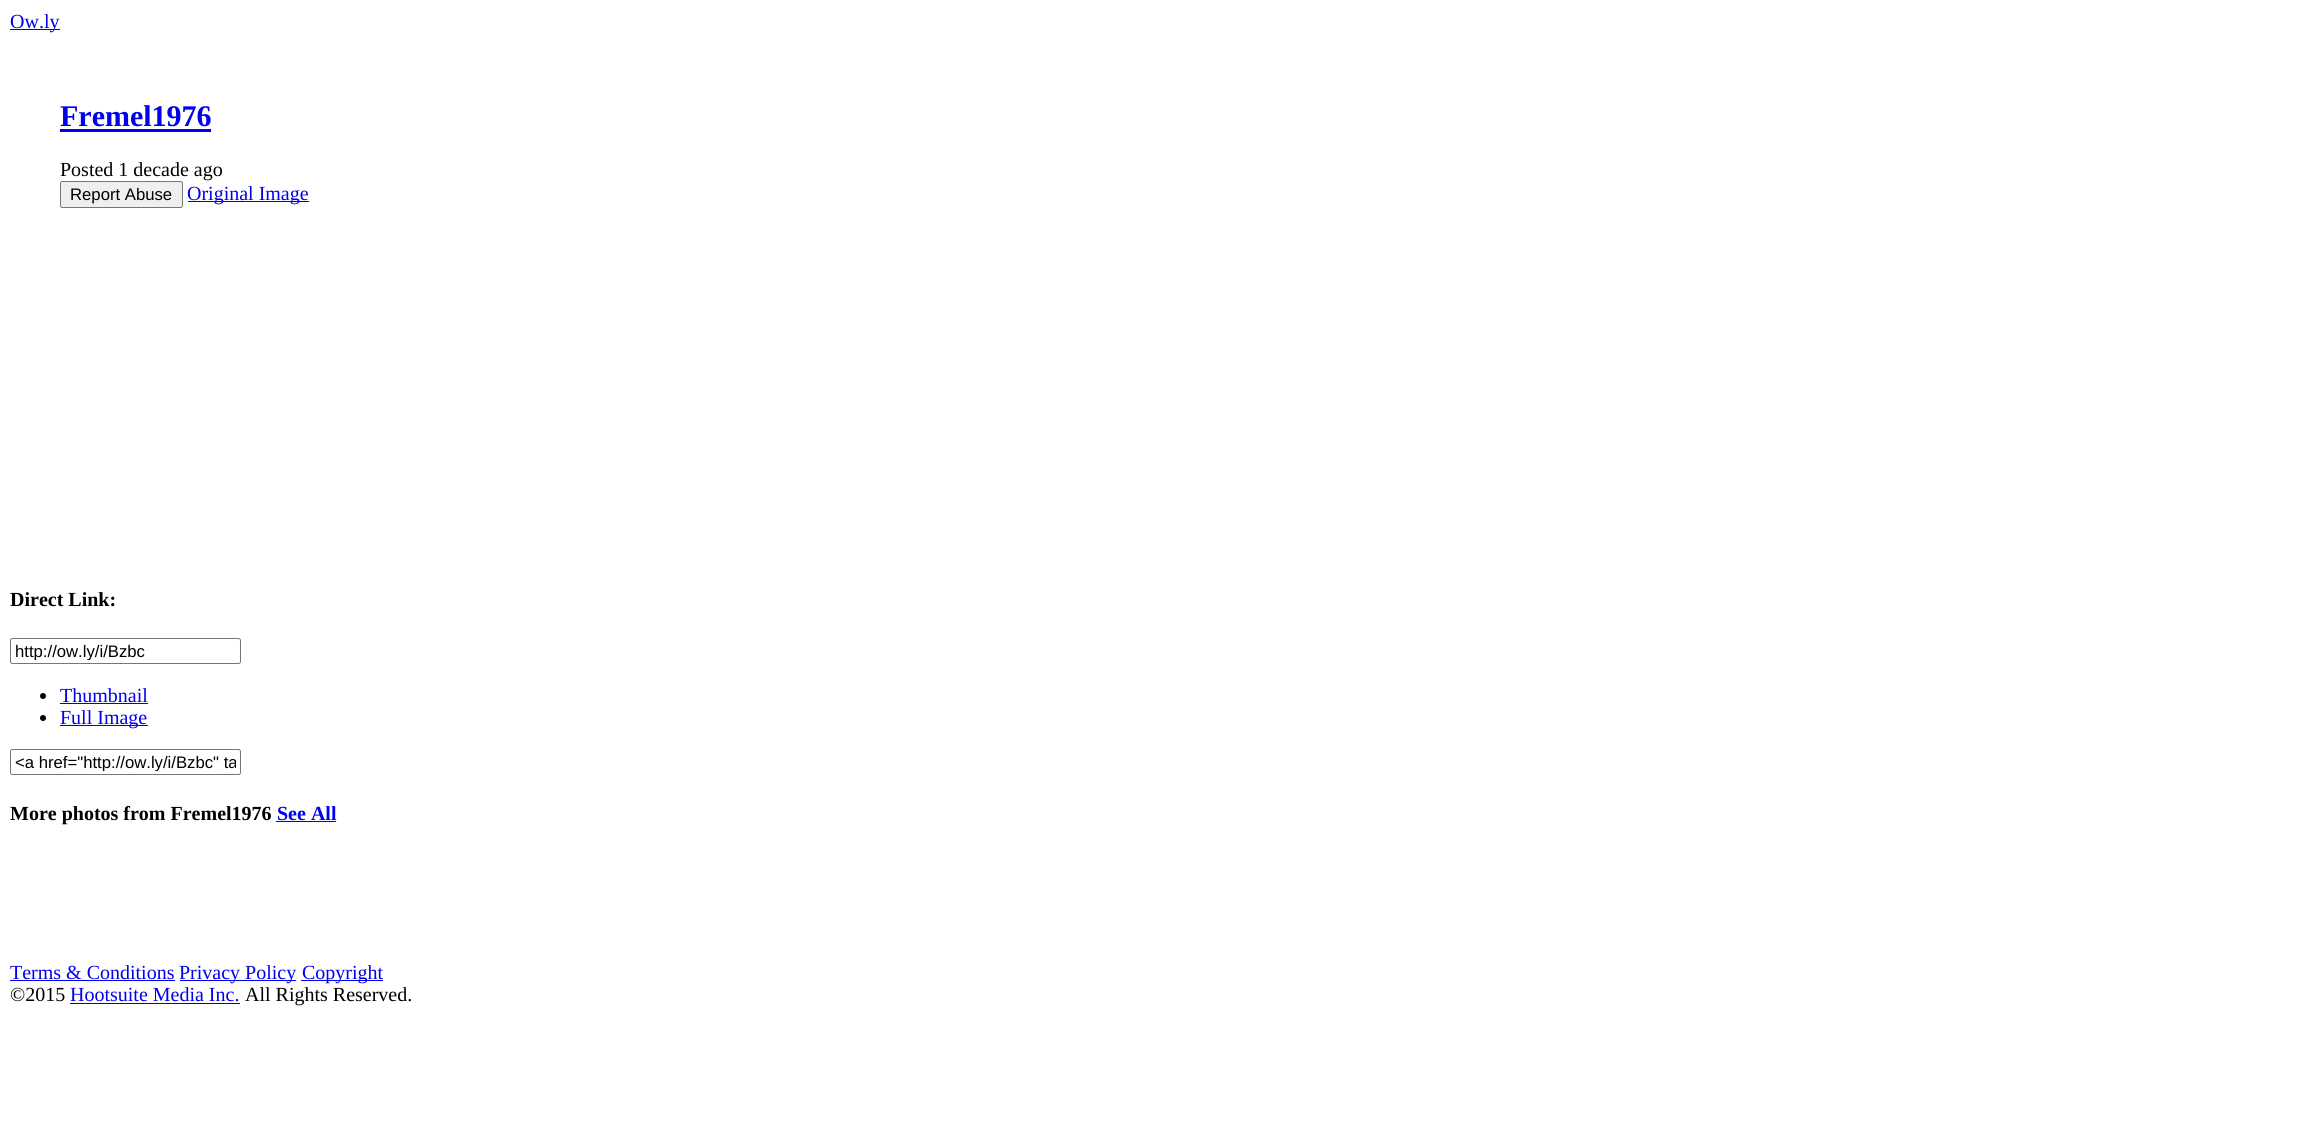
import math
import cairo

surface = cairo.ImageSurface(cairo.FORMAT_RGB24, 2304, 1147)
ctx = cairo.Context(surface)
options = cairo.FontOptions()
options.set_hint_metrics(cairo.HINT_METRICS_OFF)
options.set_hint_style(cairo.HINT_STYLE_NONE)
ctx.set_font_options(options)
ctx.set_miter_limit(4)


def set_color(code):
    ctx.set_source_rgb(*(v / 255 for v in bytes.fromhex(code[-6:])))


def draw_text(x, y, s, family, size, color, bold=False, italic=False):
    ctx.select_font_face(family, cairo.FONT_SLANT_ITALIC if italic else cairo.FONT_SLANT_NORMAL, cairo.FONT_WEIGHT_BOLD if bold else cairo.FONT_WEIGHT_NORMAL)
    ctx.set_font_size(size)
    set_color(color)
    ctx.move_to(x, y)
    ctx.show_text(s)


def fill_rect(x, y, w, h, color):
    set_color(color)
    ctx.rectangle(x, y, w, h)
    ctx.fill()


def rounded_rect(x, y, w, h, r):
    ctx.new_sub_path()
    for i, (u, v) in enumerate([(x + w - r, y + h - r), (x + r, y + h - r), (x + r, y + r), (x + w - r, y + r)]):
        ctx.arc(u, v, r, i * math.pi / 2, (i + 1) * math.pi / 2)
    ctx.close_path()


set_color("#ffffff")
ctx.paint()
fill_rect(10, 29, 50, 1, "#0000ee")
draw_text(10, 28, "Ow.ly", "Liberation Serif", 20, "#0000ee")
draw_text(60, 126, "Fremel1976", "Liberation Serif", 30, "#0000ee", bold=True)
fill_rect(60, 129, 151, 3, "#0000ee")
draw_text(60, 176, "Posted 1 decade ago", "Liberation Serif", 20, "#000000")
set_color("#efefef")
rounded_rect(60.5, 181.5, 122, 26, 2)
ctx.fill_preserve()
set_color("#767676")
ctx.set_line_width(1)
ctx.stroke()
draw_text(70, 200, "Report Abuse", "Liberation Sans", 16.7, "#000000")
fill_rect(188, 201, 121, 1, "#0000ee")
draw_text(187, 200, "Original Image", "Liberation Serif", 20, "#0000ee")
draw_text(10, 606, "Direct Link:", "Liberation Serif", 20, "#000000", bold=True)
rounded_rect(10.5, 638.5, 230, 25, 2)
set_color("#767676")
ctx.stroke()
ctx.save()
ctx.rectangle(15, 641, 221, 19)
ctx.clip()
draw_text(15, 657, "http://ow.ly/i/Bzbc", "Liberation Sans", 16.7, "#000000")
ctx.restore()
set_color("#000000")
ctx.new_path()
ctx.arc(43, 696, 3, 0, 2 * math.pi)
ctx.fill()
draw_text(60, 702, "Thumbnail", "Liberation Serif", 20, "#0000ee")
fill_rect(60, 703, 88, 1, "#0000ee")
set_color("#000000")
ctx.new_path()
ctx.arc(43, 718, 3, 0, 2 * math.pi)
ctx.fill()
fill_rect(60, 725, 88, 1, "#0000ee")
draw_text(60, 724, "Full Image", "Liberation Serif", 20, "#0000ee")
rounded_rect(10.5, 749.5, 230, 25, 2)
set_color("#767676")
ctx.stroke()
ctx.save()
ctx.rectangle(15, 753, 221, 18)
ctx.clip()
draw_text(15, 768, "<a href=\"http://ow.ly/i/Bzbc\" ta", "Liberation Sans", 16.7, "#000000")
ctx.restore()
draw_text(10, 820, "More photos from Fremel1976", "Liberation Serif", 20, "#000000", bold=True)
draw_text(277, 820, "See All", "Liberation Serif", 20, "#0000ee", bold=True)
fill_rect(276, 821, 60, 1, "#0000ee")
draw_text(10, 979, "Terms & Conditions", "Liberation Serif", 20, "#0000ee")
fill_rect(10, 980, 165, 1, "#0000ee")
fill_rect(180, 980, 116, 1, "#0000ee")
draw_text(179, 979, "Privacy Policy", "Liberation Serif", 20, "#0000ee")
fill_rect(301, 980, 82, 1, "#0000ee")
draw_text(302, 979, "Copyright", "Liberation Serif", 20, "#0000ee")
draw_text(10, 1001, "©2015", "Liberation Serif", 20, "#000000")
draw_text(70, 1001, "Hootsuite Media Inc.", "Liberation Serif", 20, "#0000ee")
fill_rect(70, 1003, 170, 1, "#0000ee")
draw_text(245, 1001, "All Rights Reserved.", "Liberation Serif", 20, "#000000")
surface.write_to_png("output.png")
